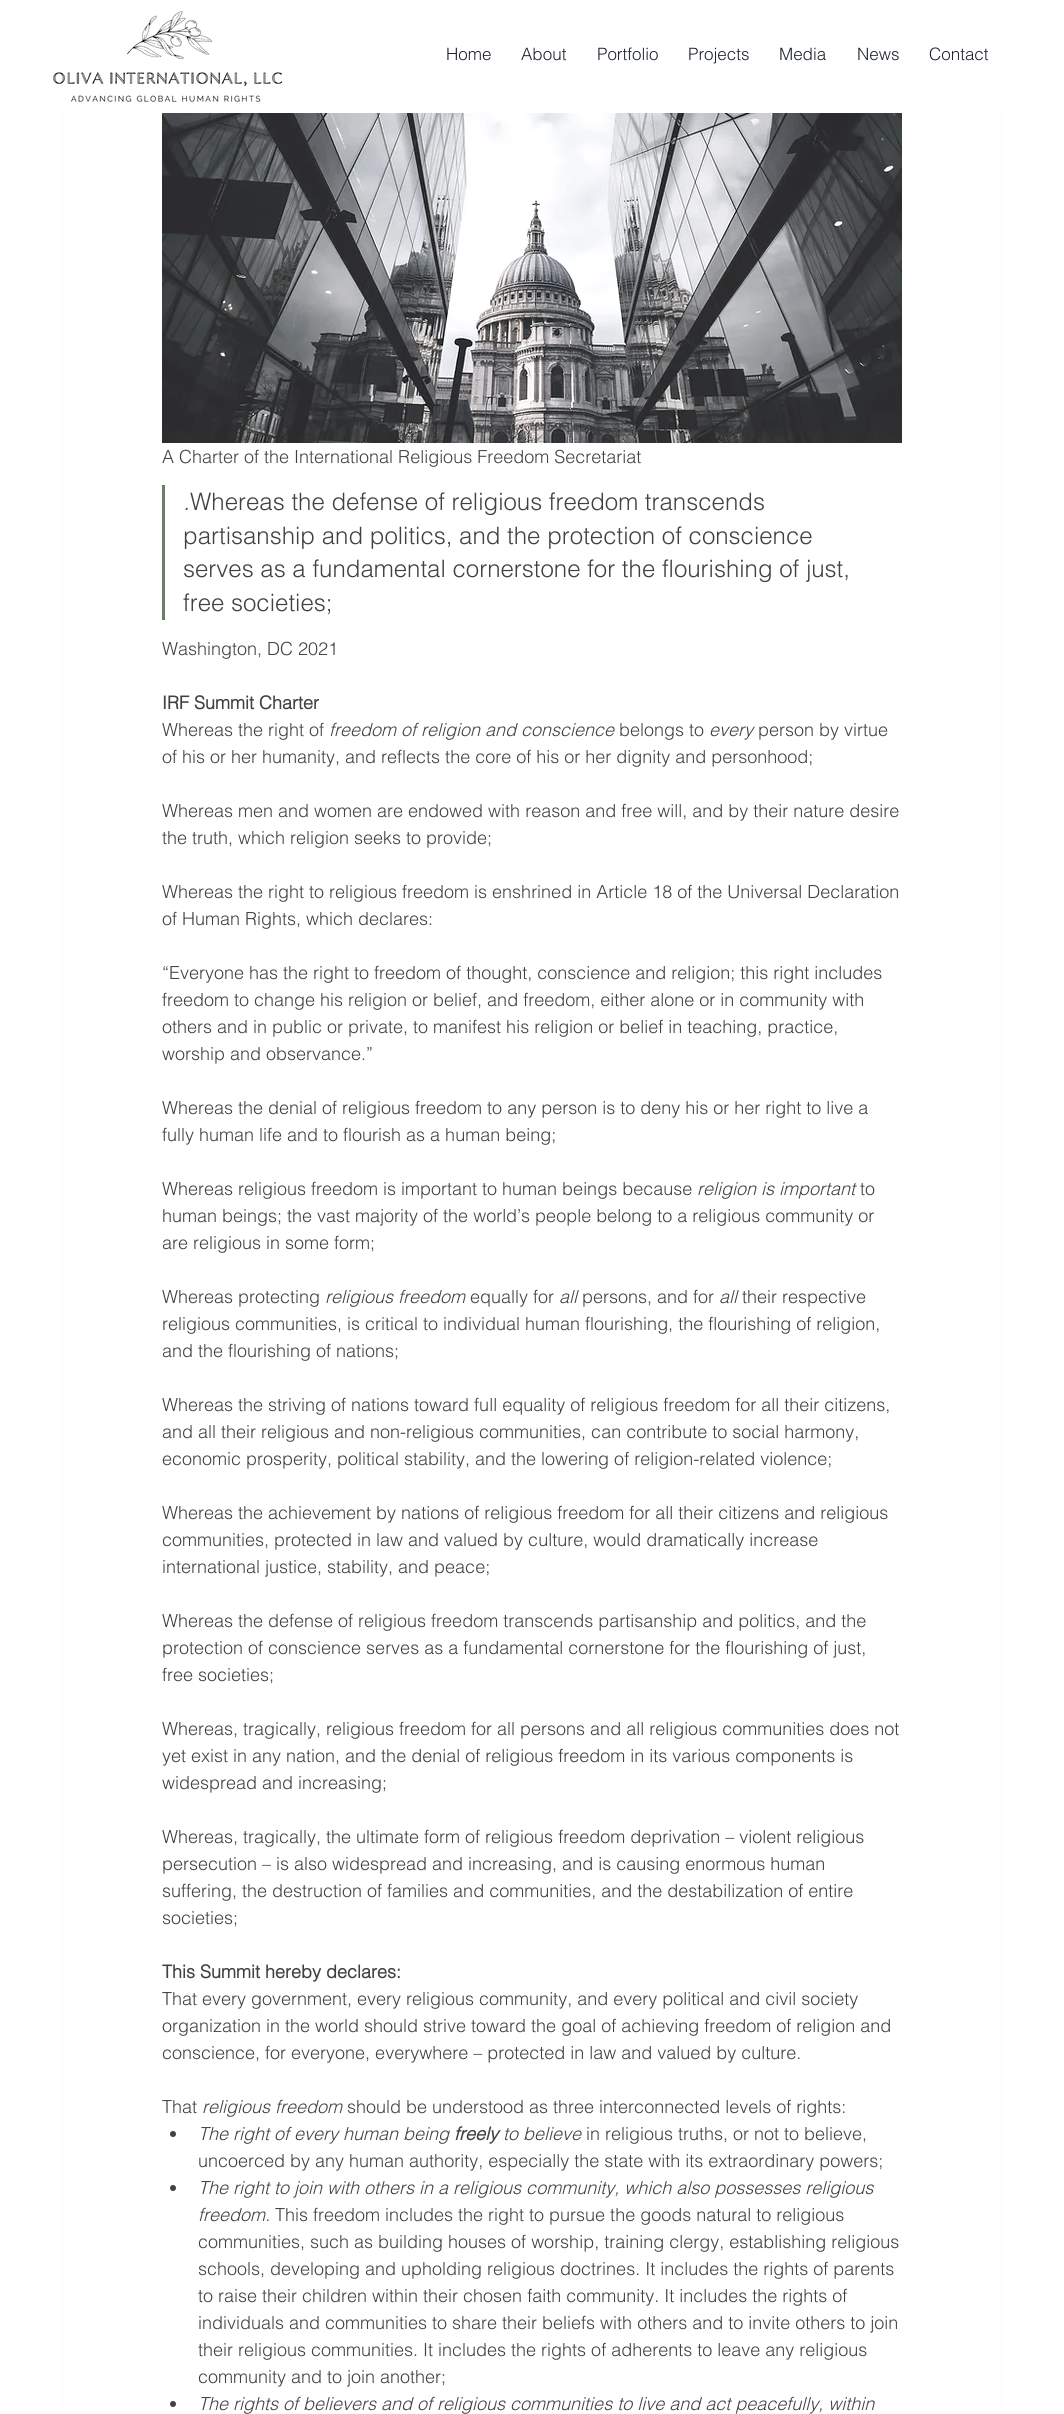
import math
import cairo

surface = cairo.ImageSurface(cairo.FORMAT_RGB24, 1064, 2414)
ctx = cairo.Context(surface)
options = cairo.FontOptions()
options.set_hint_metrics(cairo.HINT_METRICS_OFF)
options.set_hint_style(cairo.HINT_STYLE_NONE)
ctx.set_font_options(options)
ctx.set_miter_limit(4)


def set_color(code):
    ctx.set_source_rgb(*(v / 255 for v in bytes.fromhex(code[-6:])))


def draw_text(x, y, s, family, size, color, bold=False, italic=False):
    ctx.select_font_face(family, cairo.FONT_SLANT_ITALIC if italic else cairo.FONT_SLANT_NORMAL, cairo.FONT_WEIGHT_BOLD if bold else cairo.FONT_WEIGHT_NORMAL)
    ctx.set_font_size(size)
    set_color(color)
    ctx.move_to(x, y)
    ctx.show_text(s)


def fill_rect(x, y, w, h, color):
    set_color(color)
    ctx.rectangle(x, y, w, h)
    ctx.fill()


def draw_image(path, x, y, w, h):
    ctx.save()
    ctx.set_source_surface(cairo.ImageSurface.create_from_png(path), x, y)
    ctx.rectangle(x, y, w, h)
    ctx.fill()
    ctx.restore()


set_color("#ffffff")
ctx.paint()
ctx.rectangle(62.5, -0.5, 939, 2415)
set_color("#fbfbfb")
ctx.set_line_width(1)
ctx.stroke()
fill_rect(62, 0, 940, 113, "#ffffff")
draw_image("assets/img1.png", 53, 11, 230, 91)
draw_text(446, 60, "Home", "helvetica Light", 17, "#1e242e")
draw_text(521, 60, "About", "helvetica Light", 17, "#1e242e")
draw_text(597, 60, "Portfolio", "helvetica Light", 17, "#1e242e")
draw_text(688, 60, "Projects", "helvetica Light", 17, "#1e242e")
draw_text(779, 60, "Media", "helvetica Light", 17, "#1e242e")
draw_text(857, 60, "News", "helvetica Light", 17, "#1e242e")
draw_text(929, 60, "Contact", "helvetica Light", 17, "#1e242e")
draw_image("assets/img2.png", 162, 113, 740, 330)
draw_text(162, 463, "A Charter of the International Religious Freedom Secretariat", "helvetica Light", 18, "#414141")
fill_rect(162, 485, 3, 135, "#697d68")
draw_text(183, 510, ".", "helvetica Light", 24, "#414141", italic=True)
draw_text(190, 510, "Whereas the defense of religious freedom transcends", "helvetica Light", 24, "#414141")
draw_text(183, 544, "partisanship and politics, and the protection of conscience", "helvetica Light", 24, "#414141")
draw_text(183, 577, "serves as a fundamental cornerstone for the flourishing of just,", "helvetica Light", 24, "#414141")
draw_text(183, 611, "free societies;", "helvetica Light", 24, "#414141")
draw_text(162, 655, "Washington, DC 2021", "helvetica Light", 18, "#414141")
draw_text(162, 709, "IRF Summit Charter", "helvetica", 18, "#414141", bold=True)
draw_text(162, 736, "Whereas the right of", "helvetica Light", 18, "#414141")
draw_text(329, 736, "freedom of religion and conscience", "helvetica Light", 18, "#414141", italic=True)
draw_text(619, 736, "belongs to", "helvetica Light", 18, "#414141")
draw_text(709, 736, "every", "helvetica Light", 18, "#414141", italic=True)
draw_text(758, 736, "person by virtue", "helvetica Light", 18, "#414141")
draw_text(162, 763, "of his or her humanity, and reflects the core of his or her dignity and personhood;", "helvetica Light", 18, "#414141")
draw_text(162, 817, "Whereas men and women are endowed with reason and free will, and by their nature desire", "helvetica Light", 18, "#414141")
draw_text(162, 844, "the truth, which religion seeks to provide;", "helvetica Light", 18, "#414141")
draw_text(162, 898, "Whereas the right to religious freedom is enshrined in Article 18 of the Universal Declaration", "helvetica Light", 18, "#414141")
draw_text(162, 925, "of Human Rights, which declares:", "helvetica Light", 18, "#414141")
draw_text(162, 979, "“Everyone has the right to freedom of thought, conscience and religion; this right includes", "helvetica Light", 18, "#414141")
draw_text(162, 1006, "freedom to change his religion or belief, and freedom, either alone or in community with", "helvetica Light", 18, "#414141")
draw_text(162, 1033, "others and in public or private, to manifest his religion or belief in teaching, practice,", "helvetica Light", 18, "#414141")
draw_text(162, 1060, "worship and observance.”", "helvetica Light", 18, "#414141")
draw_text(162, 1114, "Whereas the denial of religious freedom to any person is to deny his or her right to live a", "helvetica Light", 18, "#414141")
draw_text(162, 1141, "fully human life and to flourish as a human being;", "helvetica Light", 18, "#414141")
draw_text(162, 1195, "Whereas religious freedom is important to human beings because", "helvetica Light", 18, "#414141")
draw_text(697, 1195, "religion is important", "helvetica Light", 18, "#414141", italic=True)
draw_text(860, 1195, "to", "helvetica Light", 18, "#414141")
draw_text(162, 1222, "human beings; the vast majority of the world’s people belong to a religious community or", "helvetica Light", 18, "#414141")
draw_text(162, 1249, "are religious in some form;", "helvetica Light", 18, "#414141")
draw_text(162, 1303, "Whereas protecting", "helvetica Light", 18, "#414141")
draw_text(325, 1303, "religious freedom", "helvetica Light", 18, "#414141", italic=True)
draw_text(470, 1303, "equally for", "helvetica Light", 18, "#414141")
draw_text(559, 1303, "all", "helvetica Light", 18, "#414141", italic=True)
draw_text(582, 1303, "persons, and for", "helvetica Light", 18, "#414141")
draw_text(719, 1303, "all", "helvetica Light", 18, "#414141", italic=True)
draw_text(742, 1303, "their respective", "helvetica Light", 18, "#414141")
draw_text(162, 1330, "religious communities, is critical to individual human flourishing, the flourishing of religion,", "helvetica Light", 18, "#414141")
draw_text(162, 1357, "and the flourishing of nations;", "helvetica Light", 18, "#414141")
draw_text(162, 1411, "Whereas the striving of nations toward full equality of religious freedom for all their citizens,", "helvetica Light", 18, "#414141")
draw_text(162, 1438, "and all their religious and non-religious communities, can contribute to social harmony,", "helvetica Light", 18, "#414141")
draw_text(162, 1465, "economic prosperity, political stability, and the lowering of religion-related violence;", "helvetica Light", 18, "#414141")
draw_text(162, 1519, "Whereas the achievement by nations of religious freedom for all their citizens and religious", "helvetica Light", 18, "#414141")
draw_text(162, 1546, "communities, protected in law and valued by culture, would dramatically increase", "helvetica Light", 18, "#414141")
draw_text(162, 1573, "international justice, stability, and peace;", "helvetica Light", 18, "#414141")
draw_text(162, 1627, "Whereas the defense of religious freedom transcends partisanship and politics, and the", "helvetica Light", 18, "#414141")
draw_text(162, 1654, "protection of conscience serves as a fundamental cornerstone for the flourishing of just,", "helvetica Light", 18, "#414141")
draw_text(162, 1681, "free societies;", "helvetica Light", 18, "#414141")
draw_text(162, 1735, "Whereas, tragically, religious freedom for all persons and all religious communities does not", "helvetica Light", 18, "#414141")
draw_text(162, 1762, "yet exist in any nation, and the denial of religious freedom in its various components is", "helvetica Light", 18, "#414141")
draw_text(162, 1789, "widespread and increasing;", "helvetica Light", 18, "#414141")
draw_text(162, 1843, "Whereas, tragically, the ultimate form of religious freedom deprivation – violent religious", "helvetica Light", 18, "#414141")
draw_text(162, 1870, "persecution – is also widespread and increasing, and is causing enormous human", "helvetica Light", 18, "#414141")
draw_text(162, 1897, "suffering, the destruction of families and communities, and the destabilization of entire", "helvetica Light", 18, "#414141")
draw_text(162, 1924, "societies;", "helvetica Light", 18, "#414141")
draw_text(162, 1978, "This Summit hereby declares:", "helvetica", 18, "#414141", bold=True)
draw_text(162, 2005, "That every government, every religious community, and every political and civil society", "helvetica Light", 18, "#414141")
draw_text(162, 2032, "organization in the world should strive toward the goal of achieving freedom of religion and", "helvetica Light", 18, "#414141")
draw_text(162, 2059, "conscience, for everyone, everywhere – protected in law and valued by culture.", "helvetica Light", 18, "#414141")
draw_text(162, 2113, "That", "helvetica Light", 18, "#414141")
draw_text(202, 2113, "religious freedom", "helvetica Light", 18, "#414141", italic=True)
draw_text(347, 2113, "should be understood as three interconnected levels of rights:", "helvetica Light", 18, "#414141")
ctx.new_path()
ctx.arc(173, 2134, 3, 0, 2 * math.pi)
ctx.fill()
draw_text(198, 2140, "The right of every human being", "helvetica Light", 18, "#414141", italic=True)
draw_text(454, 2140, "freely", "helvetica", 18, "#414141", bold=True, italic=True)
draw_text(503, 2140, "to believe", "helvetica Light", 18, "#414141", italic=True)
draw_text(586, 2140, "in religious truths, or not to believe,", "helvetica Light", 18, "#414141")
draw_text(198, 2167, "uncoerced by any human authority, especially the state with its extraordinary powers;", "helvetica Light", 18, "#414141")
ctx.new_path()
ctx.arc(173, 2188, 3, 0, 2 * math.pi)
ctx.fill()
draw_text(198, 2194, "The right to join with others in a religious community, which also possesses religious", "helvetica Light", 18, "#414141", italic=True)
draw_text(198, 2221, "freedom.", "helvetica Light", 18, "#414141", italic=True)
draw_text(275, 2221, "This freedom includes the right to pursue the goods natural to religious", "helvetica Light", 18, "#414141")
draw_text(198, 2248, "communities, such as building houses of worship, training clergy, establishing religious", "helvetica Light", 18, "#414141")
draw_text(198, 2275, "schools, developing and upholding religious doctrines. It includes the rights of parents", "helvetica Light", 18, "#414141")
draw_text(198, 2302, "to raise their children within their chosen faith community. It includes the rights of", "helvetica Light", 18, "#414141")
draw_text(198, 2329, "individuals and communities to share their beliefs with others and to invite others to join", "helvetica Light", 18, "#414141")
draw_text(198, 2356, "their religious communities. It includes the rights of adherents to leave any religious", "helvetica Light", 18, "#414141")
draw_text(198, 2383, "community and to join another;", "helvetica Light", 18, "#414141")
ctx.new_path()
ctx.arc(173, 2404, 3, 0, 2 * math.pi)
ctx.fill()
draw_text(198, 2410, "The rights of believers and of religious communities to live and act peacefully, within", "helvetica Light", 18, "#414141", italic=True)
surface.write_to_png("output.png")
